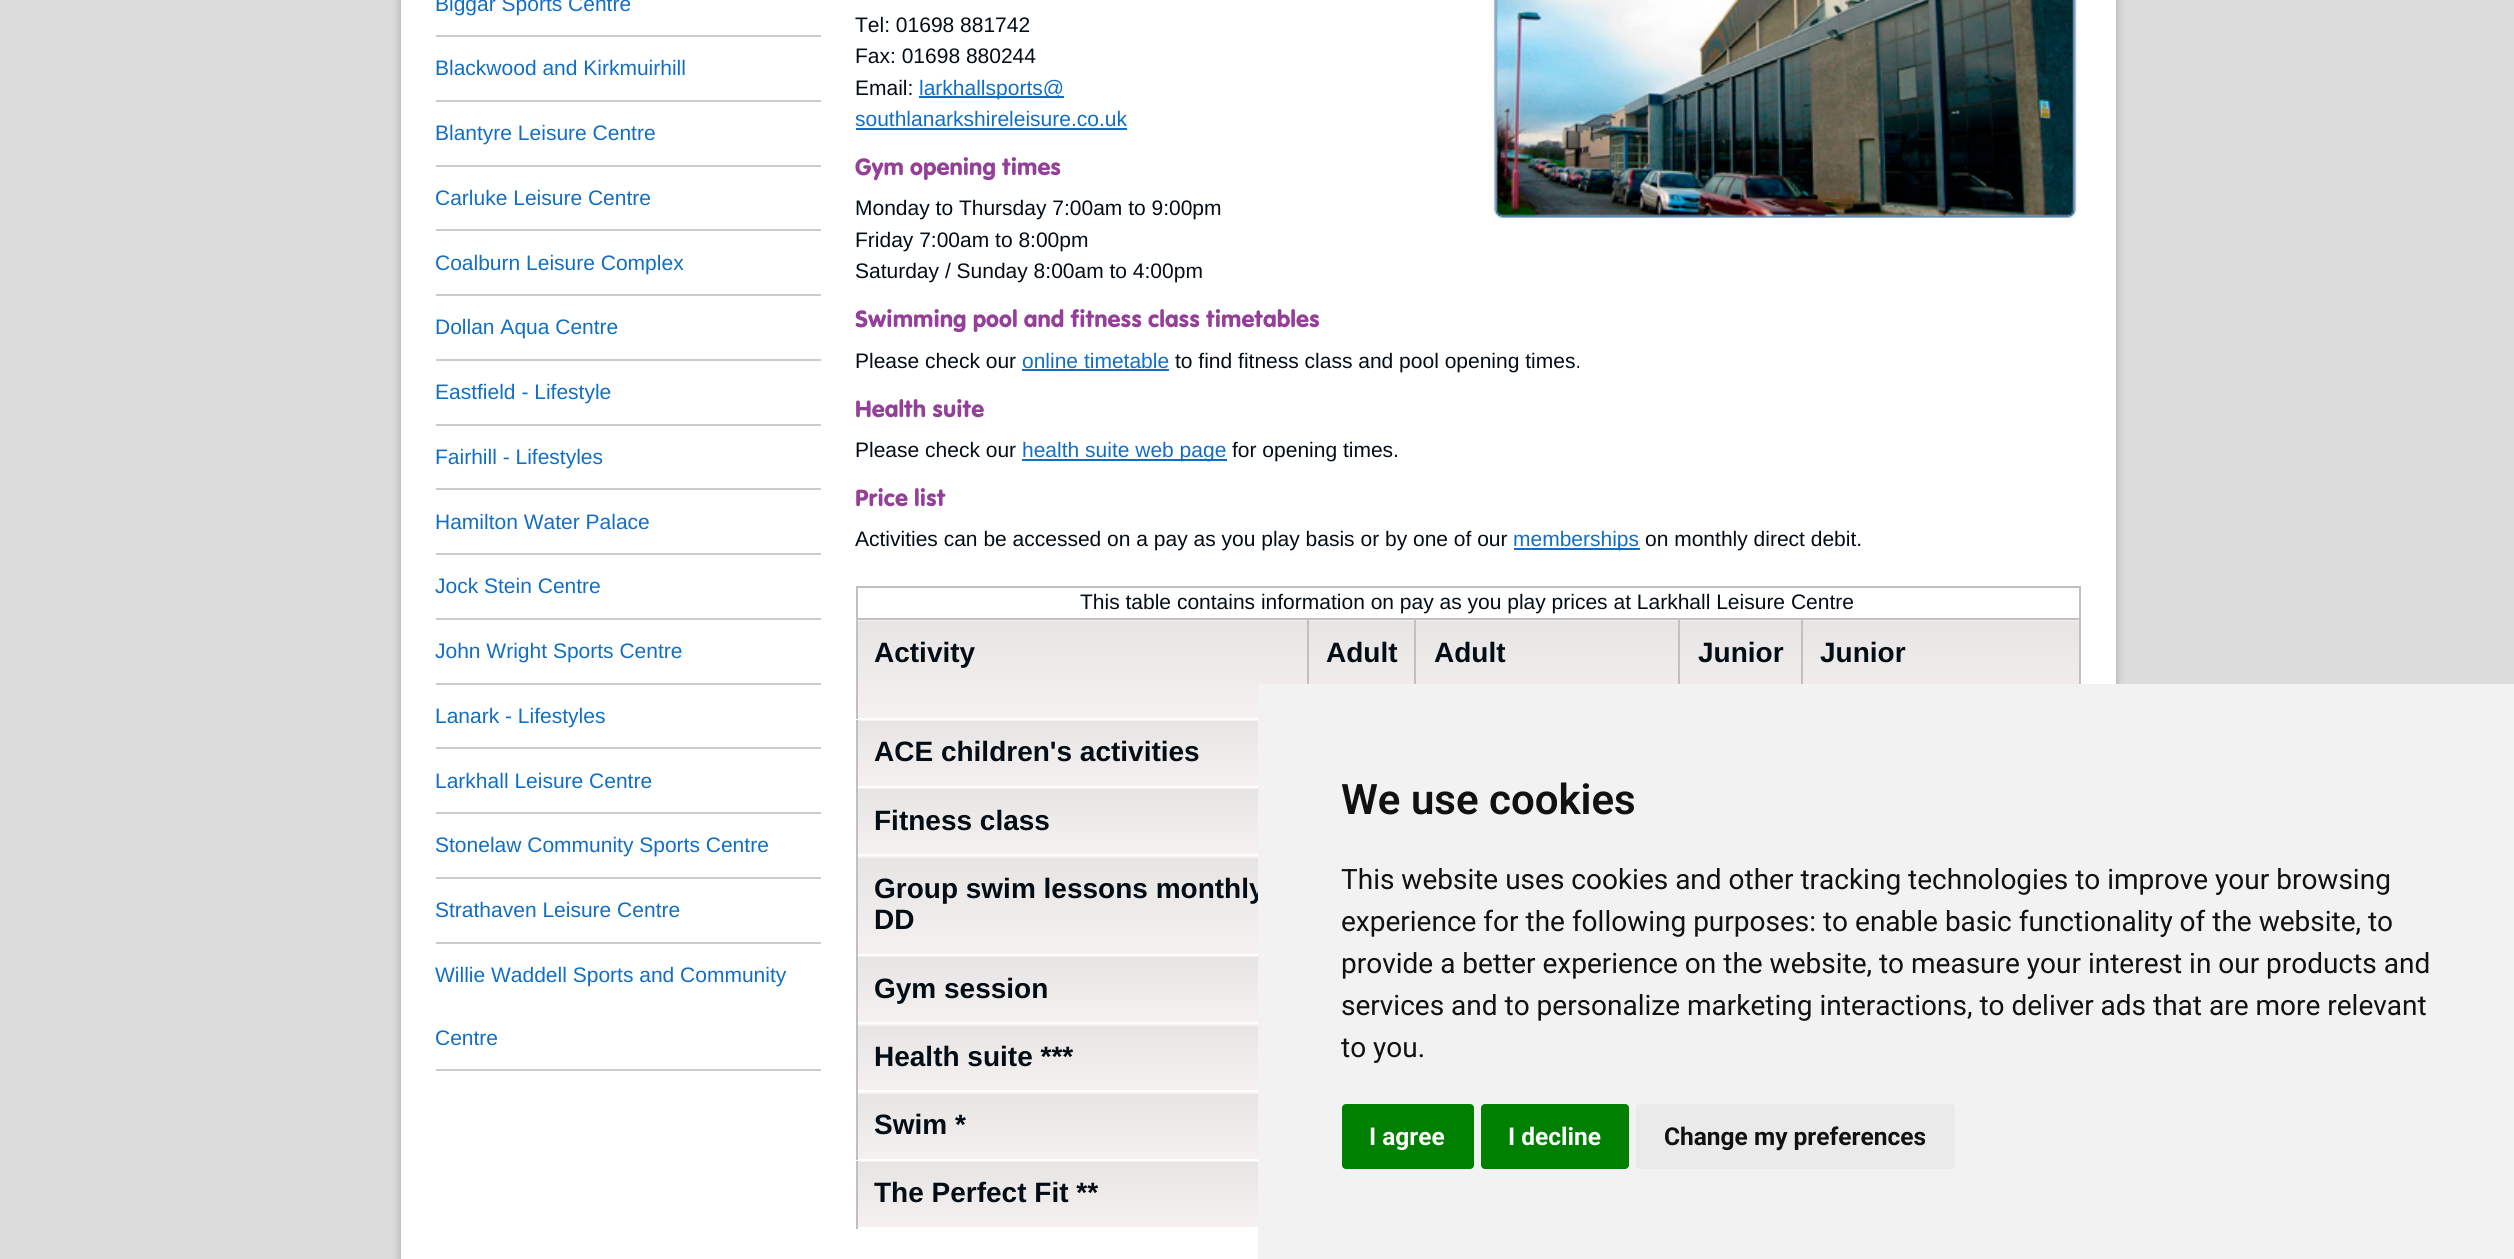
import math
import cairo

surface = cairo.ImageSurface(cairo.FORMAT_RGB24, 2514, 1259)
ctx = cairo.Context(surface)
options = cairo.FontOptions()
options.set_hint_metrics(cairo.HINT_METRICS_OFF)
options.set_hint_style(cairo.HINT_STYLE_NONE)
ctx.set_font_options(options)
ctx.set_miter_limit(4)


def set_color(code):
    ctx.set_source_rgb(*(v / 255 for v in bytes.fromhex(code[-6:])))


def draw_text(x, y, s, family, size, color, bold=False, italic=False):
    ctx.select_font_face(family, cairo.FONT_SLANT_ITALIC if italic else cairo.FONT_SLANT_NORMAL, cairo.FONT_WEIGHT_BOLD if bold else cairo.FONT_WEIGHT_NORMAL)
    ctx.set_font_size(size)
    set_color(color)
    ctx.move_to(x, y)
    ctx.show_text(s)


def fill_rect(x, y, w, h, color):
    set_color(color)
    ctx.rectangle(x, y, w, h)
    ctx.fill()


def rounded_rect(x, y, w, h, r):
    ctx.new_sub_path()
    for i, (u, v) in enumerate([(x + w - r, y + h - r), (x + r, y + h - r), (x + r, y + r), (x + w - r, y + r)]):
        ctx.arc(u, v, r, i * math.pi / 2, (i + 1) * math.pi / 2)
    ctx.close_path()


def draw_shadow(x, y, w, h, r, blur, alpha):
    ctx.push_group_with_content(cairo.CONTENT_ALPHA)
    ctx.set_operator(cairo.OPERATOR_SOURCE)
    for i in range(15, -16, -2):
        e = blur * i / 6
        if min(w, h) + 2 * e > 0:
            ctx.set_source_rgba(0, 0, 0, alpha * math.erfc((i - 1) / 8.5) / 2)
            rounded_rect(x - e, y - e, w + 2 * e, h + 2 * e, max(0, min(r + e + blur * .6, min(w, h) / 2 + e)))
            ctx.fill()
    ctx.mask(ctx.pop_group())


def draw_image(path, x, y, w, h):
    ctx.save()
    ctx.set_source_surface(cairo.ImageSurface.create_from_png(path), x, y)
    ctx.rectangle(x, y, w, h)
    ctx.fill()
    ctx.restore()


set_color("#dcdcdc")
ctx.paint()
set_color("#000000")
draw_shadow(401, -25, 1715, 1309, 11, 4.5, 0.25)
fill_rect(401, 0, 1715, 1259, "#ffffff")
fill_rect(436, 35, 385, 2, "#cccccc")
draw_text(435, 11, "Biggar Sports Centre", "Liberation Sans", 21, "#126ec4")
fill_rect(436, 100, 385, 2, "#cccccc")
draw_text(435, 75, "Blackwood and Kirkmuirhill", "Liberation Sans", 21, "#126ec4")
fill_rect(436, 165, 385, 2, "#cccccc")
draw_text(435, 140, "Blantyre Leisure Centre", "Liberation Sans", 21, "#126ec4")
fill_rect(436, 229, 385, 2, "#cccccc")
draw_text(435, 205, "Carluke Leisure Centre", "Liberation Sans", 21, "#126ec4")
fill_rect(436, 294, 385, 2, "#cccccc")
draw_text(435, 270, "Coalburn Leisure Complex", "Liberation Sans", 21, "#126ec4")
fill_rect(436, 359, 385, 2, "#cccccc")
draw_text(435, 334, "Dollan Aqua Centre", "Liberation Sans", 21, "#126ec4")
fill_rect(436, 424, 385, 2, "#cccccc")
draw_text(435, 399, "Eastfield - Lifestyle", "Liberation Sans", 21, "#126ec4")
fill_rect(436, 488, 385, 2, "#cccccc")
draw_text(435, 464, "Fairhill - Lifestyles", "Liberation Sans", 21, "#126ec4")
fill_rect(436, 553, 385, 2, "#cccccc")
draw_text(435, 529, "Hamilton Water Palace", "Liberation Sans", 21, "#126ec4")
fill_rect(436, 618, 385, 2, "#cccccc")
draw_text(435, 593, "Jock Stein Centre", "Liberation Sans", 21, "#126ec4")
fill_rect(436, 683, 385, 2, "#cccccc")
draw_text(435, 658, "John Wright Sports Centre", "Liberation Sans", 21, "#126ec4")
fill_rect(436, 747, 385, 2, "#cccccc")
draw_text(435, 723, "Lanark - Lifestyles", "Liberation Sans", 21, "#126ec4")
fill_rect(436, 812, 385, 2, "#cccccc")
draw_text(435, 788, "Larkhall Leisure Centre", "Liberation Sans", 21, "#126ec4")
fill_rect(436, 877, 385, 2, "#cccccc")
draw_text(435, 852, "Stonelaw Community Sports Centre", "Liberation Sans", 21, "#126ec4")
fill_rect(436, 942, 385, 2, "#cccccc")
draw_text(435, 917, "Strathaven Leisure Centre", "Liberation Sans", 21, "#126ec4")
fill_rect(436, 1069, 385, 2, "#cccccc")
draw_text(435, 982, "Willie Waddell Sports and Community", "Liberation Sans", 21, "#126ec4")
draw_text(435, 1045, "Centre", "Liberation Sans", 21, "#126ec4")
draw_image("assets/img1.png", 1493, 0, 584, 218)
draw_text(855, 32, "Tel: 01698 881742", "Liberation Sans", 21, "#020d16")
draw_text(855, 63, "Fax: 01698 880244", "Liberation Sans", 21, "#020d16")
draw_text(855, 95, "Email:", "Liberation Sans", 21, "#020d16")
fill_rect(919, 96, 145, 2, "#126ec4")
draw_text(919, 95, "larkhallsports@", "Liberation Sans", 21, "#126ec4")
draw_text(855, 126, "southlanarkshireleisure.co.uk", "Liberation Sans", 21, "#126ec4")
fill_rect(856, 128, 271, 2, "#126ec4")
draw_text(855, 175, "Gym opening times", "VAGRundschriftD", 24.5, "#944099")
draw_text(855, 215, "Monday to Thursday 7:00am to 9:00pm", "Liberation Sans", 21, "#020d16")
draw_text(855, 247, "Friday 7:00am to 8:00pm", "Liberation Sans", 21, "#020d16")
draw_text(855, 278, "Saturday / Sunday 8:00am to 4:00pm", "Liberation Sans", 21, "#020d16")
draw_text(855, 327, "Swimming pool and fitness class timetables", "VAGRundschriftD", 24.5, "#944099")
draw_text(855, 368, "Please check our", "Liberation Sans", 21, "#020d16")
draw_text(1022, 368, "online timetable", "Liberation Sans", 21, "#126ec4")
fill_rect(1022, 369, 147, 2, "#126ec4")
draw_text(1175, 368, "to find fitness class and pool opening times.", "Liberation Sans", 21, "#020d16")
draw_text(855, 417, "Health suite", "VAGRundschriftD", 24.5, "#944099")
draw_text(855, 457, "Please check our", "Liberation Sans", 21, "#020d16")
fill_rect(1022, 459, 205, 2, "#126ec4")
draw_text(1022, 457, "health suite web page", "Liberation Sans", 21, "#126ec4")
draw_text(1232, 457, "for opening times.", "Liberation Sans", 21, "#020d16")
draw_text(855, 506, "Price list", "VAGRundschriftD", 24.5, "#944099")
draw_text(855, 546, "Activities can be accessed on a pay as you play basis or by one of our", "Liberation Sans", 21, "#020d16")
fill_rect(1514, 548, 126, 2, "#126ec4")
draw_text(1513, 546, "memberships", "Liberation Sans", 21, "#126ec4")
draw_text(1645, 546, "on monthly direct debit.", "Liberation Sans", 21, "#020d16")
fill_rect(856, 586, 1225, 2, "#c1bfc0")
fill_rect(2079, 586, 2, 98, "#c1bfc0")
fill_rect(856, 586, 2, 32, "#c1bfc0")
draw_text(1080, 609, "This table contains information on pay as you play prices at Larkhall Leisure Centre", "Liberation Sans", 21, "#020d16")
gradient = cairo.LinearGradient(858, 525, 858, 621)
gradient.add_color_stop_rgba(0, 0.906, 0.894, 0.894, 1)
gradient.add_color_stop_rgba(1, 0.961, 0.945, 0.945, 1)
ctx.set_source(gradient)
ctx.rectangle(856, 620, 451, 1)
ctx.fill()
gradient = cairo.LinearGradient(858, 621, 858, 718)
gradient.add_color_stop_rgba(0, 0.906, 0.894, 0.894, 1)
gradient.add_color_stop_rgba(1, 0.961, 0.945, 0.945, 1)
ctx.set_source(gradient)
ctx.rectangle(858, 621, 449, 97)
ctx.fill()
fill_rect(1801, 618, 280, 2, "#c1bfc0")
gradient = cairo.LinearGradient(1682, 525, 1682, 621)
gradient.add_color_stop_rgba(0, 0.906, 0.894, 0.894, 1)
gradient.add_color_stop_rgba(1, 0.961, 0.945, 0.945, 1)
ctx.set_source(gradient)
ctx.rectangle(1680, 620, 123, 1)
ctx.fill()
fill_rect(1801, 618, 2, 66, "#c1bfc0")
fill_rect(1678, 618, 125, 2, "#c1bfc0")
gradient = cairo.LinearGradient(1418, 525, 1418, 621)
gradient.add_color_stop_rgba(0, 0.906, 0.894, 0.894, 1)
gradient.add_color_stop_rgba(1, 0.961, 0.945, 0.945, 1)
ctx.set_source(gradient)
ctx.rectangle(1416, 620, 264, 1)
ctx.fill()
fill_rect(1678, 618, 2, 66, "#c1bfc0")
fill_rect(1414, 618, 266, 2, "#c1bfc0")
gradient = cairo.LinearGradient(1309, 525, 1309, 621)
gradient.add_color_stop_rgba(0, 0.906, 0.894, 0.894, 1)
gradient.add_color_stop_rgba(1, 0.961, 0.945, 0.945, 1)
ctx.set_source(gradient)
ctx.rectangle(1307, 620, 109, 1)
ctx.fill()
fill_rect(1414, 618, 2, 66, "#c1bfc0")
fill_rect(1307, 618, 109, 2, "#c1bfc0")
fill_rect(1307, 618, 2, 66, "#c1bfc0")
fill_rect(856, 618, 453, 2, "#c1bfc0")
gradient = cairo.LinearGradient(858, 656, 858, 721)
gradient.add_color_stop_rgba(0, 0.906, 0.894, 0.894, 1)
gradient.add_color_stop_rgba(1, 0.961, 0.945, 0.945, 1)
ctx.set_source(gradient)
ctx.rectangle(856, 720, 402, 1)
ctx.fill()
gradient = cairo.LinearGradient(858, 725, 858, 789)
gradient.add_color_stop_rgba(0, 0.906, 0.894, 0.894, 1)
gradient.add_color_stop_rgba(1, 0.961, 0.945, 0.945, 1)
ctx.set_source(gradient)
ctx.rectangle(856, 788, 402, 1)
ctx.fill()
gradient = cairo.LinearGradient(858, 761, 858, 858)
gradient.add_color_stop_rgba(0, 0.906, 0.894, 0.894, 1)
gradient.add_color_stop_rgba(1, 0.961, 0.945, 0.945, 1)
ctx.set_source(gradient)
ctx.rectangle(856, 856, 402, 2)
ctx.fill()
gradient = cairo.LinearGradient(858, 893, 858, 957)
gradient.add_color_stop_rgba(0, 0.906, 0.894, 0.894, 1)
gradient.add_color_stop_rgba(1, 0.961, 0.945, 0.945, 1)
ctx.set_source(gradient)
ctx.rectangle(856, 956, 402, 1)
ctx.fill()
gradient = cairo.LinearGradient(858, 961, 858, 1026)
gradient.add_color_stop_rgba(0, 0.906, 0.894, 0.894, 1)
gradient.add_color_stop_rgba(1, 0.961, 0.945, 0.945, 1)
ctx.set_source(gradient)
ctx.rectangle(856, 1024, 402, 2)
ctx.fill()
gradient = cairo.LinearGradient(858, 1029, 858, 1094)
gradient.add_color_stop_rgba(0, 0.906, 0.894, 0.894, 1)
gradient.add_color_stop_rgba(1, 0.961, 0.945, 0.945, 1)
ctx.set_source(gradient)
ctx.rectangle(856, 1092, 402, 2)
ctx.fill()
gradient = cairo.LinearGradient(858, 1097, 858, 1162)
gradient.add_color_stop_rgba(0, 0.906, 0.894, 0.894, 1)
gradient.add_color_stop_rgba(1, 0.961, 0.945, 0.945, 1)
ctx.set_source(gradient)
ctx.rectangle(856, 1161, 402, 1)
ctx.fill()
fill_rect(856, 1159, 2, 70, "#c1bfc0")
fill_rect(856, 1159, 2, 2, "#ffffff")
fill_rect(856, 1090, 2, 70, "#c1bfc0")
fill_rect(856, 1090, 2, 2, "#ffffff")
fill_rect(856, 1022, 2, 70, "#c1bfc0")
fill_rect(856, 1022, 2, 2, "#ffffff")
fill_rect(856, 954, 2, 70, "#c1bfc0")
fill_rect(856, 954, 2, 2, "#ffffff")
fill_rect(856, 854, 2, 102, "#c1bfc0")
fill_rect(856, 854, 2, 2, "#ffffff")
fill_rect(856, 786, 2, 70, "#c1bfc0")
fill_rect(856, 786, 2, 2, "#ffffff")
fill_rect(856, 718, 2, 70, "#c1bfc0")
fill_rect(856, 718, 2, 2, "#ffffff")
fill_rect(856, 618, 2, 101, "#c1bfc0")
draw_text(874, 662, "Activity", "Liberation Sans", 28, "#020d16", bold=True)
gradient = cairo.LinearGradient(1309, 621, 1309, 718)
gradient.add_color_stop_rgba(0, 0.906, 0.894, 0.894, 1)
gradient.add_color_stop_rgba(1, 0.961, 0.945, 0.945, 1)
ctx.set_source(gradient)
ctx.rectangle(1309, 621, 105, 63)
ctx.fill()
draw_text(1326, 662, "Adult", "Liberation Sans", 28, "#020d16", bold=True)
gradient = cairo.LinearGradient(1418, 621, 1418, 718)
gradient.add_color_stop_rgba(0, 0.906, 0.894, 0.894, 1)
gradient.add_color_stop_rgba(1, 0.961, 0.945, 0.945, 1)
ctx.set_source(gradient)
ctx.rectangle(1416, 621, 262, 63)
ctx.fill()
draw_text(1434, 662, "Adult", "Liberation Sans", 28, "#020d16", bold=True)
gradient = cairo.LinearGradient(1682, 621, 1682, 718)
gradient.add_color_stop_rgba(0, 0.906, 0.894, 0.894, 1)
gradient.add_color_stop_rgba(1, 0.961, 0.945, 0.945, 1)
ctx.set_source(gradient)
ctx.rectangle(1680, 621, 121, 63)
ctx.fill()
draw_text(1698, 662, "Junior", "Liberation Sans", 28, "#020d16", bold=True)
gradient = cairo.LinearGradient(1804, 525, 1804, 621)
gradient.add_color_stop_rgba(0, 0.906, 0.894, 0.894, 1)
gradient.add_color_stop_rgba(1, 0.961, 0.945, 0.945, 1)
ctx.set_source(gradient)
ctx.rectangle(1803, 620, 276, 1)
ctx.fill()
gradient = cairo.LinearGradient(1804, 621, 1804, 718)
gradient.add_color_stop_rgba(0, 0.906, 0.894, 0.894, 1)
gradient.add_color_stop_rgba(1, 0.961, 0.945, 0.945, 1)
ctx.set_source(gradient)
ctx.rectangle(1803, 621, 276, 63)
ctx.fill()
draw_text(1820, 662, "Junior", "Liberation Sans", 28, "#020d16", bold=True)
gradient = cairo.LinearGradient(858, 721, 858, 786)
gradient.add_color_stop_rgba(0, 0.906, 0.894, 0.894, 1)
gradient.add_color_stop_rgba(1, 0.961, 0.945, 0.945, 1)
ctx.set_source(gradient)
ctx.rectangle(858, 721, 400, 65)
ctx.fill()
draw_text(874, 761, "ACE children's activities", "Liberation Sans", 28, "#020d16", bold=True)
gradient = cairo.LinearGradient(858, 789, 858, 854)
gradient.add_color_stop_rgba(0, 0.906, 0.894, 0.894, 1)
gradient.add_color_stop_rgba(1, 0.961, 0.945, 0.945, 1)
ctx.set_source(gradient)
ctx.rectangle(858, 789, 400, 65)
ctx.fill()
draw_text(874, 830, "Fitness class", "Liberation Sans", 28, "#020d16", bold=True)
gradient = cairo.LinearGradient(858, 858, 858, 954)
gradient.add_color_stop_rgba(0, 0.906, 0.894, 0.894, 1)
gradient.add_color_stop_rgba(1, 0.961, 0.945, 0.945, 1)
ctx.set_source(gradient)
ctx.rectangle(858, 858, 400, 96)
ctx.fill()
draw_text(874, 898, "Group swim lessons monthly", "Liberation Sans", 28, "#020d16", bold=True)
draw_text(874, 929, "DD", "Liberation Sans", 28, "#020d16", bold=True)
gradient = cairo.LinearGradient(858, 957, 858, 1022)
gradient.add_color_stop_rgba(0, 0.906, 0.894, 0.894, 1)
gradient.add_color_stop_rgba(1, 0.961, 0.945, 0.945, 1)
ctx.set_source(gradient)
ctx.rectangle(858, 957, 400, 65)
ctx.fill()
draw_text(874, 998, "Gym session", "Liberation Sans", 28, "#020d16", bold=True)
gradient = cairo.LinearGradient(858, 1026, 858, 1090)
gradient.add_color_stop_rgba(0, 0.906, 0.894, 0.894, 1)
gradient.add_color_stop_rgba(1, 0.961, 0.945, 0.945, 1)
ctx.set_source(gradient)
ctx.rectangle(858, 1026, 400, 64)
ctx.fill()
draw_text(874, 1066, "Health suite ***", "Liberation Sans", 28, "#020d16", bold=True)
gradient = cairo.LinearGradient(858, 1094, 858, 1159)
gradient.add_color_stop_rgba(0, 0.906, 0.894, 0.894, 1)
gradient.add_color_stop_rgba(1, 0.961, 0.945, 0.945, 1)
ctx.set_source(gradient)
ctx.rectangle(858, 1094, 400, 65)
ctx.fill()
draw_text(874, 1134, "Swim *", "Liberation Sans", 28, "#020d16", bold=True)
gradient = cairo.LinearGradient(858, 1162, 858, 1227)
gradient.add_color_stop_rgba(0, 0.906, 0.894, 0.894, 1)
gradient.add_color_stop_rgba(1, 0.961, 0.945, 0.945, 1)
ctx.set_source(gradient)
ctx.rectangle(858, 1162, 400, 65)
ctx.fill()
draw_text(874, 1202, "The Perfect Fit **", "Liberation Sans", 28, "#020d16", bold=True)
fill_rect(1258, 684, 1256, 575, "#f2f2f2")
draw_text(1341, 814, "We use cookies", "Roboto SemiBold", 42, "#111111")
draw_text(1341, 889, "This website uses cookies and other tracking technologies to improve your browsing", "Roboto", 28, "#111111")
draw_text(1341, 931, "experience for the following purposes: to enable basic functionality of the website, to", "Roboto", 28, "#111111")
draw_text(1341, 973, "provide a better experience on the website, to measure your interest in our products and", "Roboto", 28, "#111111")
draw_text(1341, 1015, "services and to personalize marketing interactions, to deliver ads that are more relevant", "Roboto", 28, "#111111")
draw_text(1341, 1057, "to you.", "Roboto", 28, "#111111")
set_color("#008000")
rounded_rect(1342, 1104, 132, 65, 4)
ctx.fill()
draw_text(1369, 1145, "I agree", "Roboto", 24.5, "#ffffff", bold=True)
set_color("#008000")
rounded_rect(1481, 1104, 148, 65, 4)
ctx.fill()
draw_text(1508, 1145, "I decline", "Roboto", 24.5, "#ffffff", bold=True)
set_color("#eaeaea")
rounded_rect(1636, 1104, 319, 65, 4)
ctx.fill()
draw_text(1664, 1145, "Change my preferences", "Roboto", 24.5, "#111111", bold=True)
surface.write_to_png("output.png")
